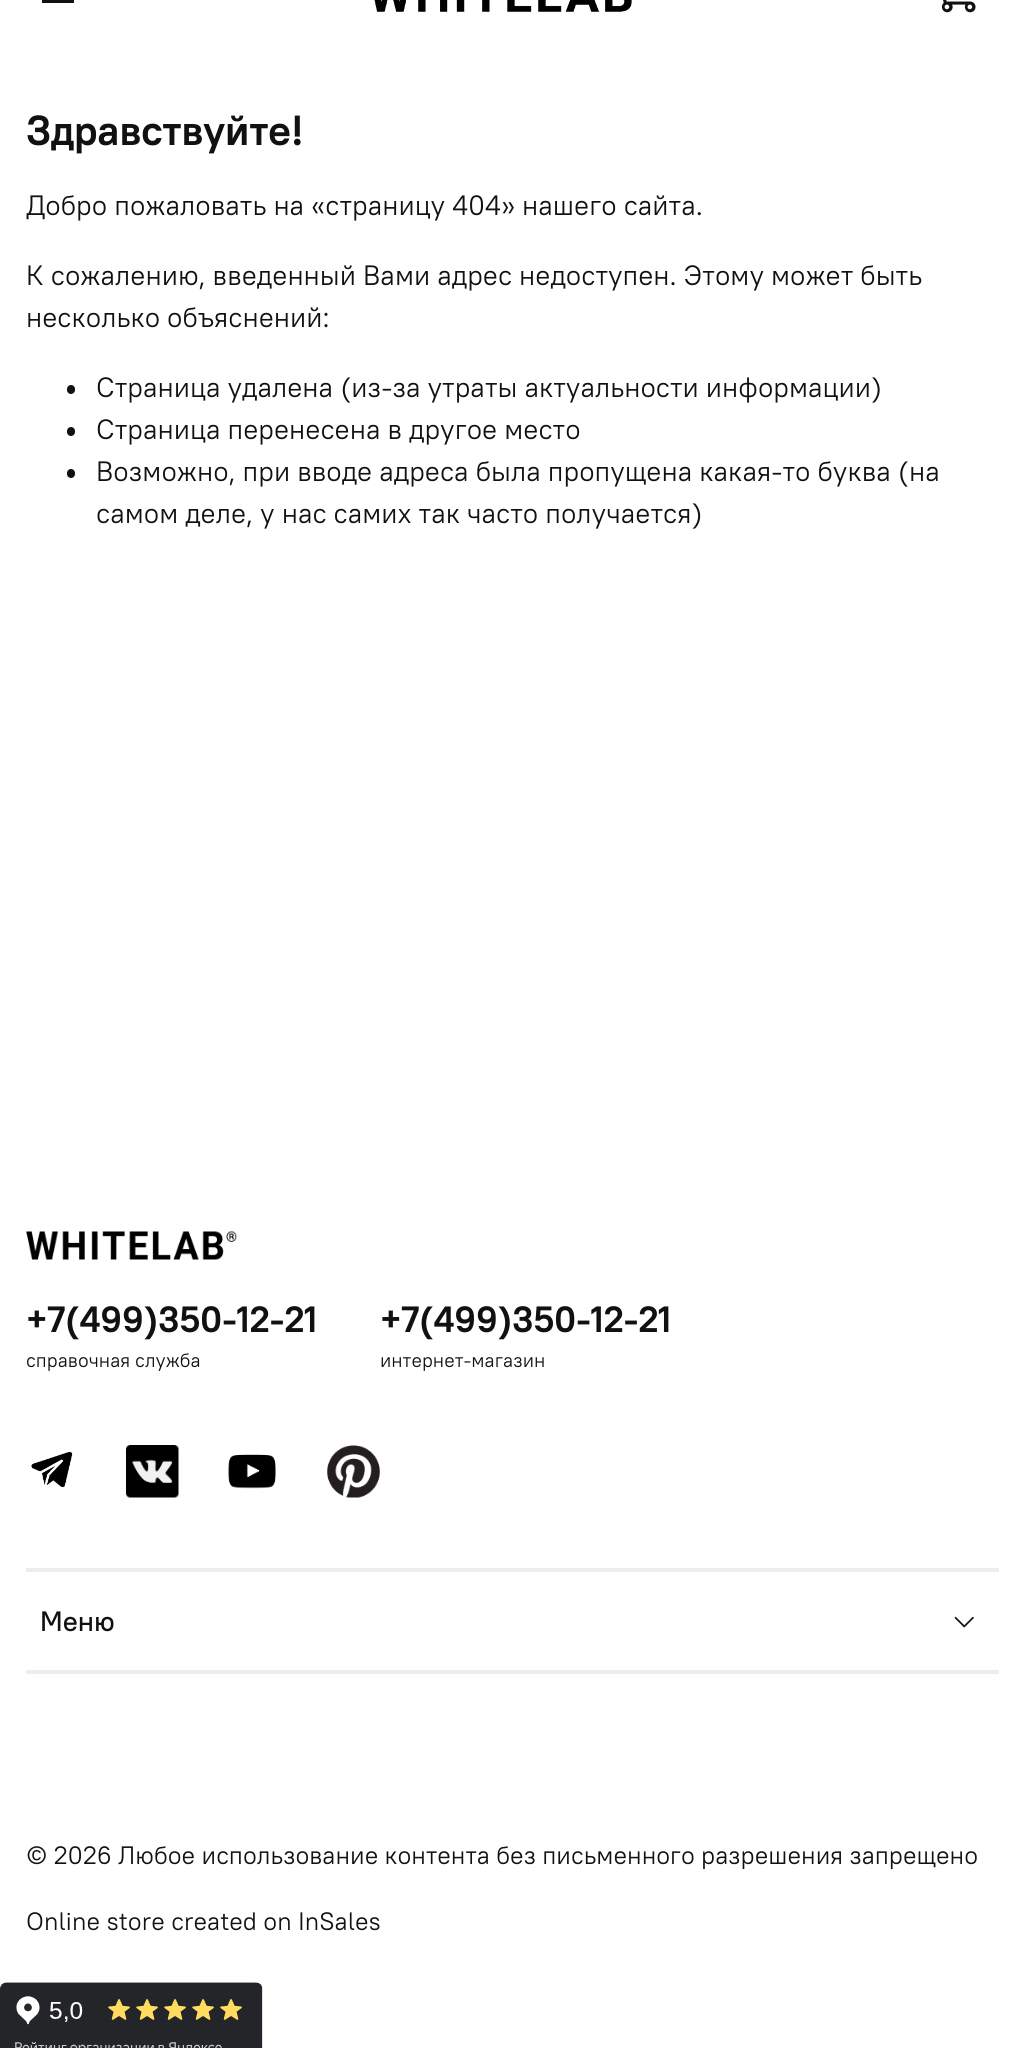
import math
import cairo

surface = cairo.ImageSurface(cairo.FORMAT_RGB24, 1024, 2048)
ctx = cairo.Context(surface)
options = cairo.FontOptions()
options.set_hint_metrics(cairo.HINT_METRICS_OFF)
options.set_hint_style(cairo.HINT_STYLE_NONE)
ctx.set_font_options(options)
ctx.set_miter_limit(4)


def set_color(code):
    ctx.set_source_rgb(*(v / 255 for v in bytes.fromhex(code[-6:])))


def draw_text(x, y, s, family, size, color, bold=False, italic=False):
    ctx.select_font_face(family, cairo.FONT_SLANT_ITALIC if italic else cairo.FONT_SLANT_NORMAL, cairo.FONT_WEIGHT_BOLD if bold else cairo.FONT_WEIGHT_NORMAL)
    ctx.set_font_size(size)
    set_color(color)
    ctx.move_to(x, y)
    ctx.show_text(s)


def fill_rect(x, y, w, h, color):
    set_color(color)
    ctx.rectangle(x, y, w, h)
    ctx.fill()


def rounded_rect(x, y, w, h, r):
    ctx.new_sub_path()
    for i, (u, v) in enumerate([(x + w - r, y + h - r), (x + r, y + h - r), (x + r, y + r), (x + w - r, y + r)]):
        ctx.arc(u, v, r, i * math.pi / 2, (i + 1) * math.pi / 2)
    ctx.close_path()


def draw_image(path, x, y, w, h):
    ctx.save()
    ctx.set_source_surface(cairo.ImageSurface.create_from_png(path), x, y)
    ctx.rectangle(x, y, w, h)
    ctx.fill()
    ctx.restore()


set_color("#ffffff")
ctx.paint()
fill_rect(42, 0, 32, 3, "#111111")
draw_image("assets/img1.png", 374, 0, 258, 12)
draw_image("assets/img2.png", 941, 0, 35, 13)
draw_text(26, 145, "Здравствуйте!", "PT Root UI", 42, "#111111", bold=True)
draw_text(26, 215, "Добро пожаловать на «страницу 404» нашего сайта.", "PT Root UI", 28, "#111111")
draw_text(26, 285, "К сожалению, введенный Вами адрес недоступен. Этому может быть", "PT Root UI", 28, "#111111")
draw_text(26, 327, "несколько объяснений:", "PT Root UI", 28, "#111111")
rounded_rect(67, 385, 8, 9, 4)
ctx.fill()
draw_text(96, 397, "Страница удалена (из-за утраты актуальности информации)", "PT Root UI", 28, "#111111")
rounded_rect(67, 427, 8, 9, 4)
ctx.fill()
draw_text(96, 439, "Страница перенесена в другое место", "PT Root UI", 28, "#111111")
rounded_rect(67, 469, 8, 9, 4)
ctx.fill()
draw_text(96, 481, "Возможно, при вводе адреса была пропущена какая-то буква (на", "PT Root UI", 28, "#111111")
draw_text(96, 523, "самом деле, у нас самих так часто получается)", "PT Root UI", 28, "#111111")
draw_image("assets/img3.png", 26, 1231, 211, 29)
draw_text(26, 1332, "+7(499)350-12-21", "PT Root UI", 36.5, "#111111", bold=True)
draw_text(26, 1367, "справочная служба", "PT Root UI", 19.5, "#111111")
draw_text(380, 1332, "+7(499)350-12-21", "PT Root UI", 36.5, "#111111", bold=True)
draw_text(380, 1367, "интернет-магазин", "PT Root UI", 19.5, "#111111")
draw_image("assets/img4.png", 31, 1451, 42, 37)
draw_image("assets/img5.png", 126, 1445, 53, 53)
draw_image("assets/img6.png", 228, 1454, 48, 35)
draw_image("assets/img7.png", 327, 1445, 53, 53)
fill_rect(26, 1568, 973, 4, "#ededed")
fill_rect(26, 1670, 973, 4, "#ededed")
draw_text(40, 1631, "Меню", "PT Root UI Medium", 28, "#111111")
draw_image("assets/img8.png", 954, 1616, 20, 12)
draw_text(26, 1864, "© 2026 Любое использование контента без письменного разрешения запрещено", "PT Root UI", 25.2, "#111111")
draw_text(26, 1930, "Online store created on InSales", "PT Root UI", 25.2, "#111111")
draw_image("assets/img9.png", 0, 1982, 263, 66)
surface.write_to_png("output.png")
